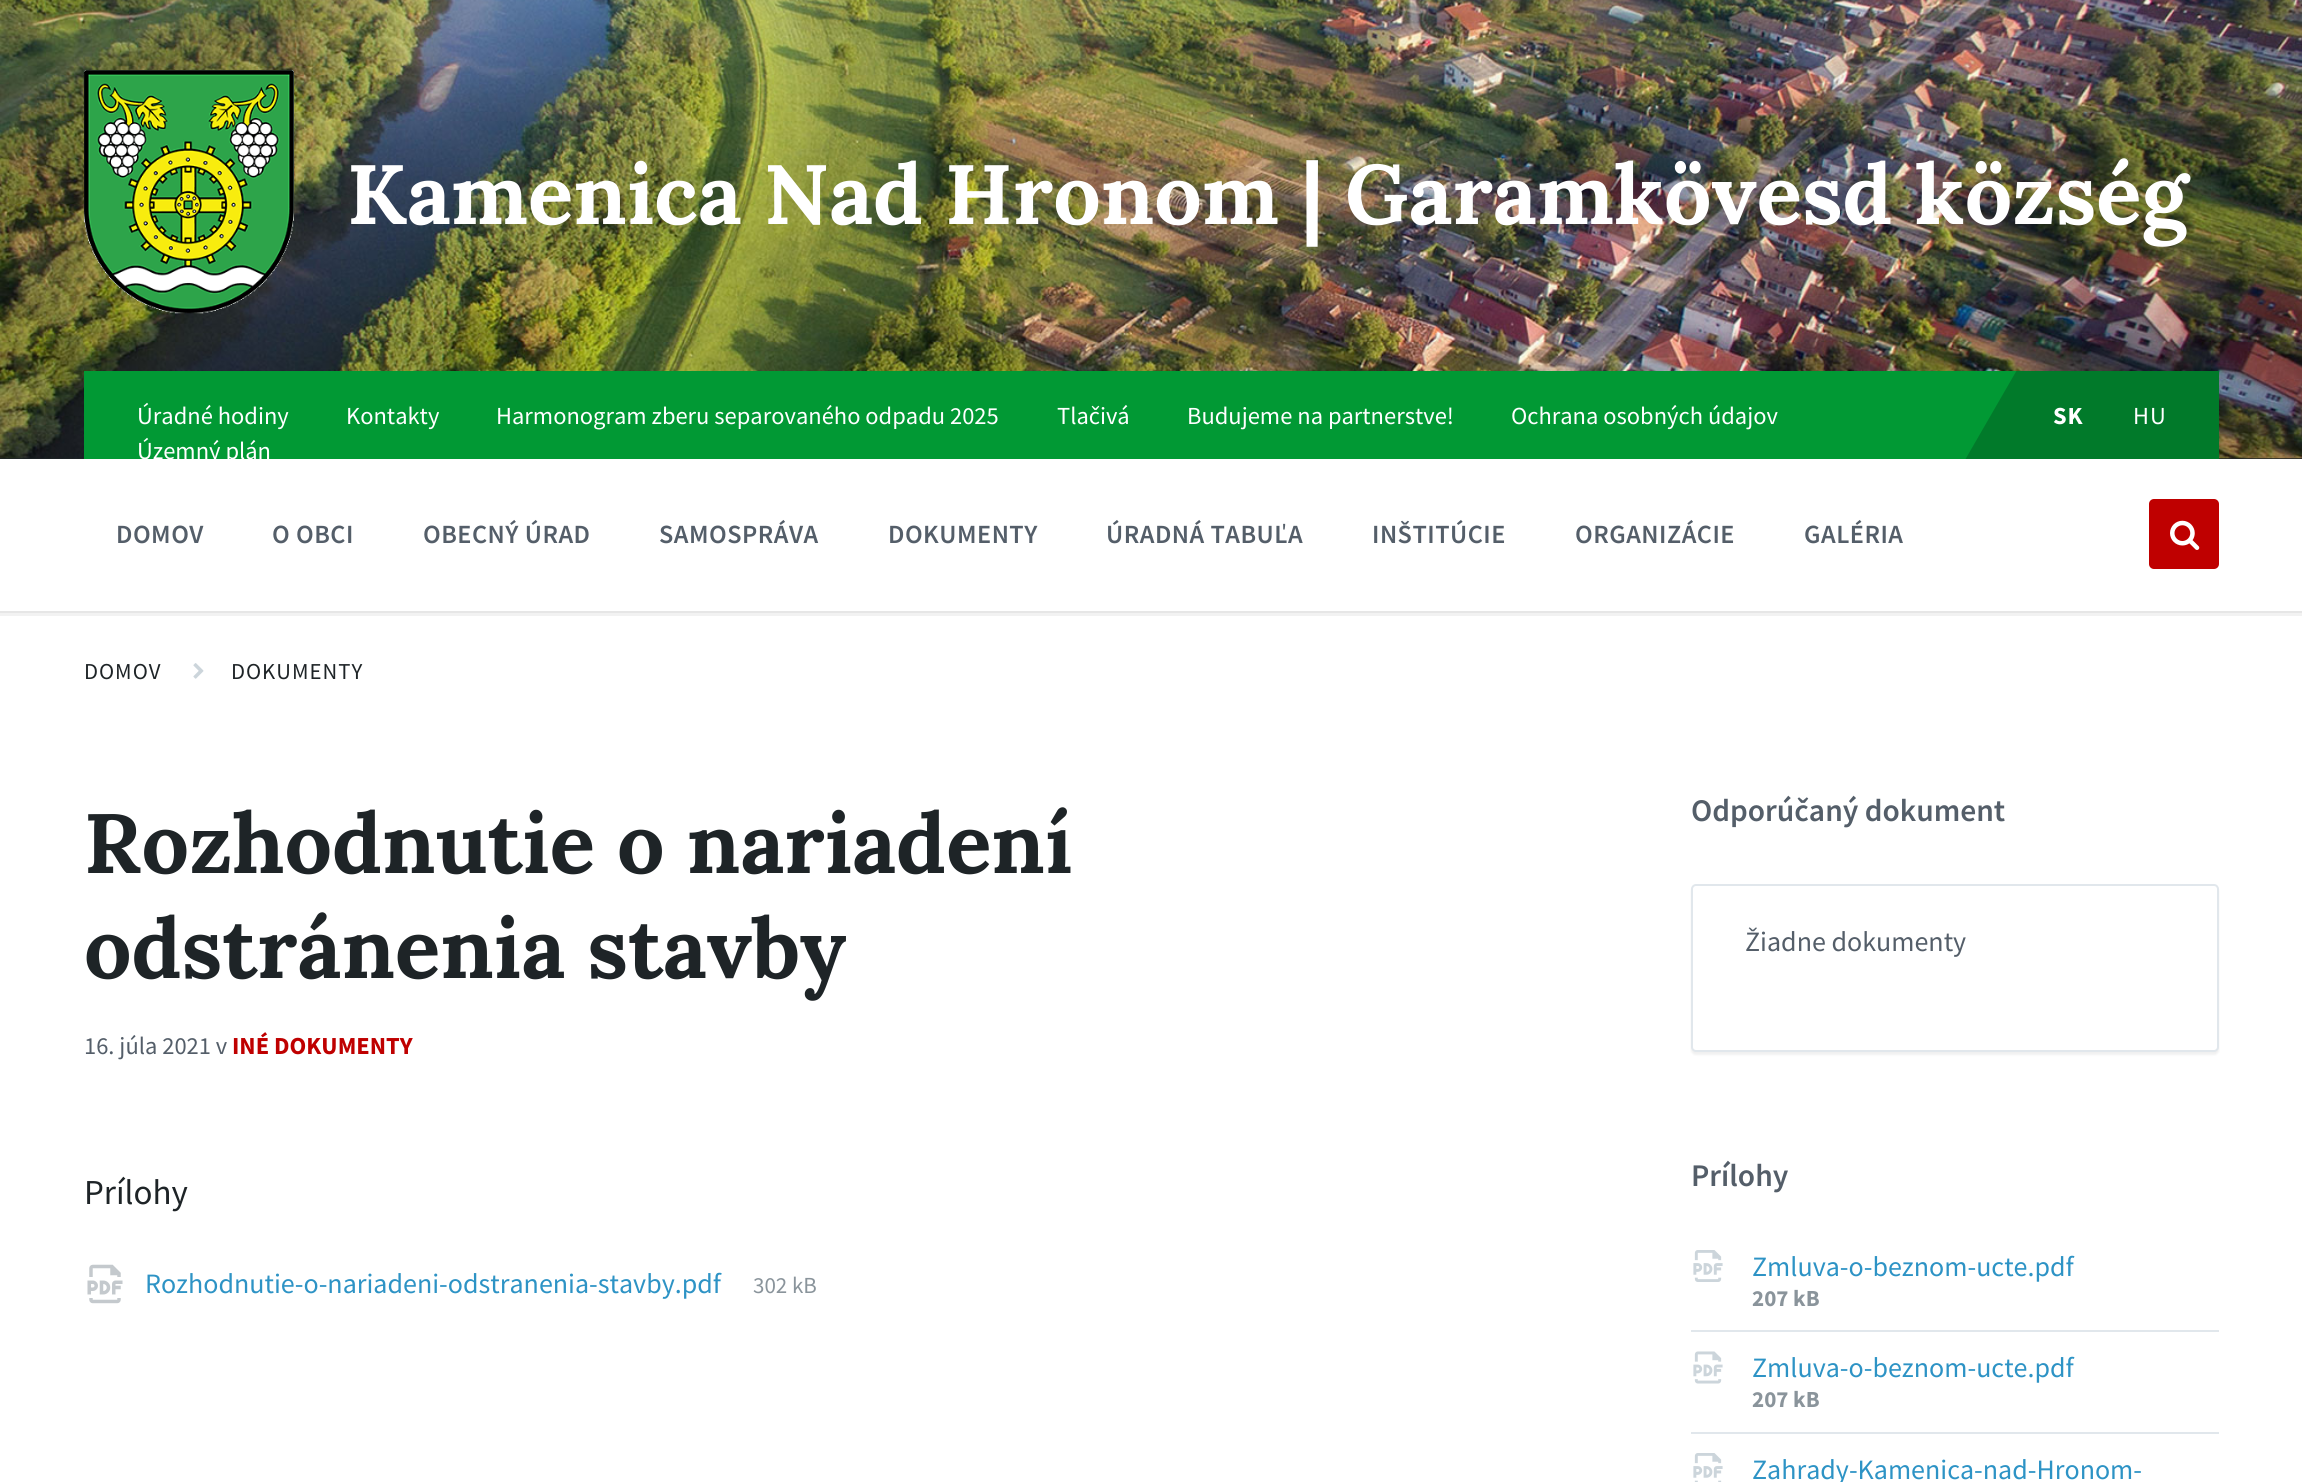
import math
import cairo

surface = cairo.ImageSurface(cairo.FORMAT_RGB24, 2302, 1482)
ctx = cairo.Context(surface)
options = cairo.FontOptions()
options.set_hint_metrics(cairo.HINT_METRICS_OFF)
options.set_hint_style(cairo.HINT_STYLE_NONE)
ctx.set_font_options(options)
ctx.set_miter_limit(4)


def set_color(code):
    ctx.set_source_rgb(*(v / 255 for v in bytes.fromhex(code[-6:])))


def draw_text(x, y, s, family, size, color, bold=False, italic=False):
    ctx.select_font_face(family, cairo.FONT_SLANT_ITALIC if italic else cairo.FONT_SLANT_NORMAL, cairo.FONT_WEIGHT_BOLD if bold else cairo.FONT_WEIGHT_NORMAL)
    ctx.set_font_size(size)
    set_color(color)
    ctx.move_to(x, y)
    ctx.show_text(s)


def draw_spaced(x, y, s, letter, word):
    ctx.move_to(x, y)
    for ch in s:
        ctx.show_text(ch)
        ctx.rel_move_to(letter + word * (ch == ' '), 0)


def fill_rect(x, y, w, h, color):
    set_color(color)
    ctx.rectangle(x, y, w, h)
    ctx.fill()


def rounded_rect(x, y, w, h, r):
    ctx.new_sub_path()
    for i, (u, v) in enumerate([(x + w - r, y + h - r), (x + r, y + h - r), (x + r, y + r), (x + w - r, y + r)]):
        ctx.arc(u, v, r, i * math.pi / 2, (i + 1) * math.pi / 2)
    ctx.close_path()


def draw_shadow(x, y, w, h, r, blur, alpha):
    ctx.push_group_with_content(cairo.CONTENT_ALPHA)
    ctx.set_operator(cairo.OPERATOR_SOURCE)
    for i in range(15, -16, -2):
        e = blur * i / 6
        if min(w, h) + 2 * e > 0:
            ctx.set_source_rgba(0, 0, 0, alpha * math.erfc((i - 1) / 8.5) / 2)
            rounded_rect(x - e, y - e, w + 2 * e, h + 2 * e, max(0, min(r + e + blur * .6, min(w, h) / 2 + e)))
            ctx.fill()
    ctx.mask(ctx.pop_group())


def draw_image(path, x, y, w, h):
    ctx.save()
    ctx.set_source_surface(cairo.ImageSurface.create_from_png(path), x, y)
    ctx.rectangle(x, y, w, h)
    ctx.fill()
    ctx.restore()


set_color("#ffffff")
ctx.paint()
ctx.rectangle(-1, 457, 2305, 157)
set_color("#f2f2f2")
ctx.set_line_width(4)
ctx.stroke()
fill_rect(0, 458, 2302, 1, "#1e2427")
draw_image("assets/img1.png", 0, 0, 2302, 459)
draw_image("assets/img2.png", 84, 70, 210, 244)
draw_text(347, 224, "Kamenica Nad Hronom | Garamkövesd község", "Lora", 84, "#ffffff", bold=True)
fill_rect(84, 371, 1933, 88, "#019934")
draw_text(137, 424, "Úradné hodiny", "Source Sans Pro", 24.5, "#ffffff")
draw_text(346, 424, "Kontakty", "Source Sans Pro", 24.5, "#ffffff")
draw_text(496, 424, "Harmonogram zberu separovaného odpadu 2025", "Source Sans Pro", 24.5, "#ffffff")
draw_text(1057, 424, "Tlačivá", "Source Sans Pro", 24.5, "#ffffff")
draw_text(1187, 424, "Budujeme na partnerstve!", "Source Sans Pro", 24.5, "#ffffff")
draw_text(1511, 424, "Ochrana osobných údajov", "Source Sans Pro", 24.5, "#ffffff")
ctx.save()
ctx.rectangle(84, 371, 2135, 88)
ctx.clip()
draw_text(137, 459, "Územný plán", "Source Sans Pro", 24.5, "#ffffff")
set_color("#017a2a")
ctx.new_path()
ctx.move_to(2129, 176)
ctx.line_to(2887, 613)
ctx.line_to(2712, 916)
ctx.line_to(1954, 479)
ctx.close_path()
ctx.fill()
ctx.restore()
ctx.select_font_face("Source Sans Pro", cairo.FONT_SLANT_NORMAL, cairo.FONT_WEIGHT_BOLD)
draw_spaced(2053, 424, "SK", 1, 0)
ctx.select_font_face("Source Sans Pro")
draw_spaced(2133, 424, "HU", 1, 0)
fill_rect(0, 459, 1, 152, "#ffffff")
fill_rect(0, 611, 2302, 2, "#e6e6e6")
ctx.select_font_face("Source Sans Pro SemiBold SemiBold")
ctx.set_font_size(26.25)
set_color("#545e69")
draw_spaced(116, 543, "DOMOV", 0.5, 0)
draw_spaced(272, 543, "O OBCI", 0.5, 0)
draw_spaced(423, 543, "OBECNÝ ÚRAD", 0.5, 0)
draw_spaced(659, 543, "SAMOSPRÁVA", 0.5, 0)
draw_spaced(888, 543, "DOKUMENTY", 0.5, 0)
draw_spaced(1106, 543, "ÚRADNÁ TABUĽA", 0.5, 0)
draw_spaced(1372, 543, "INŠTITÚCIE", 0.5, 0)
draw_spaced(1575, 543, "ORGANIZÁCIE", 0.5, 0)
draw_spaced(1804, 543, "GALÉRIA", 0.5, 0)
set_color("#bf0000")
rounded_rect(2149, 499, 70, 70, 5)
ctx.fill()
draw_image("assets/img3.png", 2170, 520, 30, 30)
ctx.select_font_face("Source Sans Pro")
ctx.set_font_size(22.75)
set_color("#1e2427")
draw_spaced(84, 679, "DOMOV", 1, 0)
draw_image("assets/img4.png", 193, 663, 11, 16)
draw_spaced(231, 679, "DOKUMENTY", 1, 0)
draw_text(84, 873, "Rozhodnutie o nariadení", "Lora", 84, "#1e2427", bold=True)
draw_text(84, 978, "odstránenia stavby", "Lora", 84, "#1e2427", bold=True)
draw_text(84, 1054, "16. júla 2021 v", "Source Sans Pro", 24.5, "#545e69")
draw_text(232, 1054, "INÉ DOKUMENTY", "Source Sans Pro", 24.5, "#bf0000", bold=True)
draw_text(84, 1204, "Prílohy", "Source Sans Pro", 35, "#1e2427")
draw_image("assets/img5.png", 87, 1264, 36, 40)
draw_text(145, 1293, "Rozhodnutie-o-nariadeni-odstranenia-stavby.pdf", "Source Sans Pro", 28, "#2d93c5")
draw_text(753, 1293, "302 kB", "Source Sans Pro", 23, "#8a949b")
draw_text(1691, 821, "Odporúčaný dokument", "Source Sans Pro SemiBold SemiBold", 31.5, "#545e69")
set_color("#000000")
draw_shadow(1691, 887, 528, 168, 5, 1, 0.06)
set_color("#ffffff")
rounded_rect(1692, 885, 526, 166, 4)
ctx.fill_preserve()
set_color("#e1e7ec")
ctx.set_line_width(2)
ctx.stroke()
draw_text(1745, 951, "Žiadne dokumenty", "Source Sans Pro", 28, "#545e69")
draw_text(1691, 1186, "Prílohy", "Source Sans Pro SemiBold SemiBold", 31.5, "#545e69")
draw_image("assets/img6.png", 1693, 1250, 30, 32)
draw_text(1752, 1276, "Zmluva-o-beznom-ucte.pdf", "Source Sans Pro", 28, "#2d93c5")
draw_text(1752, 1306, "207 kB", "Source Sans Pro", 23, "#8a949b", bold=True)
fill_rect(1691, 1330, 528, 2, "#e1e7ec")
draw_image("assets/img7.png", 1693, 1351, 30, 33)
draw_text(1752, 1377, "Zmluva-o-beznom-ucte.pdf", "Source Sans Pro", 28, "#2d93c5")
draw_text(1752, 1407, "207 kB", "Source Sans Pro", 23, "#8a949b", bold=True)
fill_rect(1691, 1432, 528, 2, "#e1e7ec")
draw_image("assets/img8.png", 1693, 1453, 30, 29)
draw_text(1752, 1479, "Zahrady-Kamenica-nad-Hronom-", "Source Sans Pro", 28, "#2d93c5")
surface.write_to_png("output.png")
